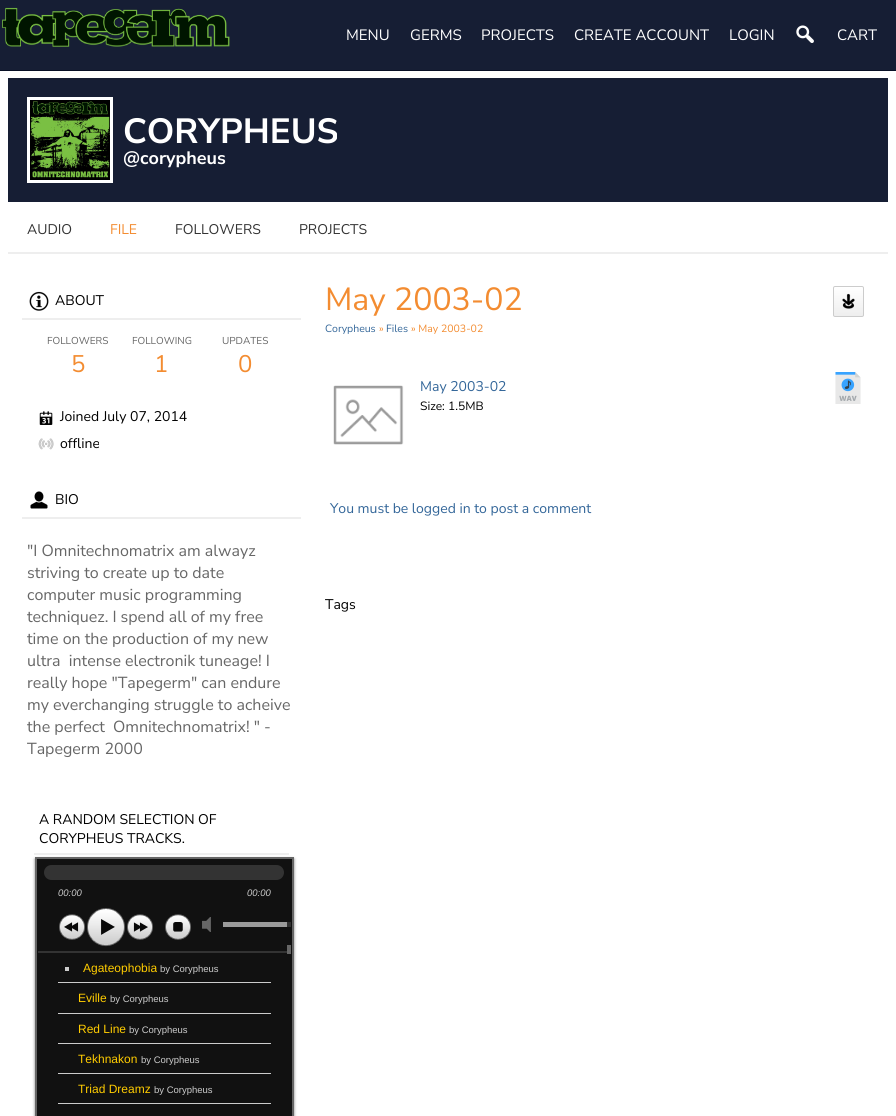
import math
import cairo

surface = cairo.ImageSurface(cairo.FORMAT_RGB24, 896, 1116)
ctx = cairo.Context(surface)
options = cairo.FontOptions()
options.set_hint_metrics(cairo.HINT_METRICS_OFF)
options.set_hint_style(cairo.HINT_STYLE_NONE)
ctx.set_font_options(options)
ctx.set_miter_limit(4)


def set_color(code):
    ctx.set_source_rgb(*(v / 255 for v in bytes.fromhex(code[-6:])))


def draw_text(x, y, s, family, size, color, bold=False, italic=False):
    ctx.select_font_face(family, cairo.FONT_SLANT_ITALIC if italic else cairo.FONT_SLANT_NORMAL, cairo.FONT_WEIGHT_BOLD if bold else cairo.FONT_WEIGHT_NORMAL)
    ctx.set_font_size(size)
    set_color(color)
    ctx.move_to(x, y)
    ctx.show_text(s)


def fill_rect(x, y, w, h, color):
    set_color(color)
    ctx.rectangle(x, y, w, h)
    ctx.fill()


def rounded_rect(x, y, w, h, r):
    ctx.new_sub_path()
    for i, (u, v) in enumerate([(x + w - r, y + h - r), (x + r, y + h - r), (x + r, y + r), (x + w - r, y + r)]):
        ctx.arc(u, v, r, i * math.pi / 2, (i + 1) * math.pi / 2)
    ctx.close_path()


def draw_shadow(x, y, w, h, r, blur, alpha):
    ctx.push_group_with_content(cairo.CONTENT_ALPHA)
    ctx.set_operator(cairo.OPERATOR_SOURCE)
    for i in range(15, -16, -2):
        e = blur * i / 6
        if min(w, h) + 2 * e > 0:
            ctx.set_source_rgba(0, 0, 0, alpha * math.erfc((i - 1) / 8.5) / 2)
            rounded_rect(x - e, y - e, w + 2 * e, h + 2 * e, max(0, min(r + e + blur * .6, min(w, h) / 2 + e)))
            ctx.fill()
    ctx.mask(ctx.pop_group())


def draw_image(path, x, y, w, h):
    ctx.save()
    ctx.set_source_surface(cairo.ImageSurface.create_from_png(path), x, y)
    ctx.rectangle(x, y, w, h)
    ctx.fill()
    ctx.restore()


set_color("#ffffff")
ctx.paint()
fill_rect(0, 0, 896, 70, "#161e34")
fill_rect(0, 70, 896, 1, "#081026")
draw_image("assets/img1.png", 2, 7, 228, 40)
draw_text(346, 40, "MENU", "Nunito Sans", 15, "#ffffff")
draw_text(410, 40, "GERMS", "Nunito Sans", 15, "#ffffff")
draw_text(481, 40, "PROJECTS", "Nunito Sans", 15, "#ffffff")
draw_text(574, 40, "CREATE ACCOUNT", "Nunito Sans", 15, "#ffffff")
draw_text(729, 40, "LOGIN", "Nunito Sans", 15, "#ffffff")
draw_image("assets/img2.png", 796, 25, 18, 18)
draw_text(837, 40, "CART", "Nunito Sans", 15, "#ffffff")
fill_rect(8, 78, 880, 124, "#161e34")
ctx.rectangle(28.5, 98.5, 83, 83)
set_color("#ffffff")
ctx.set_line_width(3)
ctx.stroke()
draw_image("assets/img3.png", 30, 100, 80, 80)
draw_text(123, 143, "CORYPHEUS", "Nunito Sans", 35, "#ffffff", bold=True)
draw_text(123, 164, "@corypheus", "Nunito Sans", 18, "#ffffff", bold=True)
fill_rect(8, 252, 880, 2, "#eeeeee")
draw_text(27, 234, "AUDIO", "Nunito Sans", 14, "#333333")
draw_text(110, 234, "FILE", "Nunito Sans", 14, "#f38c31")
draw_text(175, 234, "FOLLOWERS", "Nunito Sans", 14, "#333333")
draw_text(299, 234, "PROJECTS", "Nunito Sans", 14, "#333333")
fill_rect(22, 318, 279, 2, "#eeeeee")
draw_image("assets/img4.png", 29, 291, 20, 20)
draw_text(55, 305, "ABOUT", "Nunito Sans", 14, "#000000")
draw_text(47, 344, "FOLLOWERS", "Nunito Sans", 10, "#666666")
draw_text(71, 372, "5", "Nunito Sans", 24, "#f38c31")
draw_text(132, 344, "FOLLOWING", "Nunito Sans", 10, "#666666")
draw_text(154, 372, "1", "Nunito Sans", 24, "#f38c31")
draw_text(222, 344, "UPDATES", "Nunito Sans", 10, "#666666")
draw_text(238, 372, "0", "Nunito Sans", 24, "#f38c31")
draw_image("assets/img5.png", 39, 411, 14, 14)
draw_text(60, 421, "Joined July 07, 2014", "Nunito Sans", 14, "#000000")
draw_image("assets/img6.png", 38, 438, 16, 12)
draw_text(60, 448, "offline", "Nunito Sans", 14, "#000000")
fill_rect(22, 517, 279, 2, "#eeeeee")
draw_image("assets/img7.png", 30, 491, 18, 18)
draw_text(55, 504, "BIO", "Nunito Sans", 14, "#000000")
draw_text(27, 556, "\"I Omnitechnomatrix am alwayz", "Nunito Sans", 16, "#666666")
draw_text(27, 578, "striving to create up to date", "Nunito Sans", 16, "#666666")
draw_text(27, 600, "computer music programming", "Nunito Sans", 16, "#666666")
draw_text(27, 622, "techniquez. I spend all of my free", "Nunito Sans", 16, "#666666")
draw_text(27, 644, "time on the production of my new", "Nunito Sans", 16, "#666666")
draw_text(27, 666, "ultra  intense electronik tuneage! I", "Nunito Sans", 16, "#666666")
draw_text(27, 688, "really hope \"Tapegerm\" can endure", "Nunito Sans", 16, "#666666")
draw_text(27, 710, "my everchanging struggle to acheive", "Nunito Sans", 16, "#666666")
draw_text(27, 732, "the perfect  Omnitechnomatrix! \" -", "Nunito Sans", 16, "#666666")
draw_text(27, 754, "Tapegerm 2000", "Nunito Sans", 16, "#666666")
fill_rect(34, 853, 255, 2, "#eeeeee")
draw_text(39, 824, "A RANDOM SELECTION OF", "Nunito Sans", 14, "#000000")
draw_text(39, 843, "CORYPHEUS TRACKS.", "Nunito Sans", 14, "#000000")
set_color("#000000")
draw_shadow(35, 859, 259, 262, 0, 1.5, 0.5)
set_color("#111111")
ctx.rectangle(36, 858, 257, 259)
ctx.fill_preserve()
set_color("#666666")
ctx.set_line_width(2)
ctx.stroke()
set_color("#333333")
rounded_rect(44, 865, 240, 15, 7.5)
ctx.fill()
draw_text(58, 896, "00:00", "Liberation Sans", 9.5, "#cccccc", italic=True)
draw_text(247, 896, "00:00", "Liberation Sans", 9.5, "#cccccc", italic=True)
draw_image("assets/img8.png", 59, 914, 26, 26)
draw_image("assets/img9.png", 87, 908, 38, 39)
draw_image("assets/img10.png", 127, 914, 26, 26)
draw_image("assets/img11.png", 165, 914, 26, 26)
draw_image("assets/img12.png", 202, 917, 9, 15)
fill_rect(38, 951, 253, 2, "#333333")
fill_rect(287, 945, 4, 9, "#666666")
fill_rect(287, 922, 4, 5, "#303030")
fill_rect(223, 922, 64, 5, "#9a9a9a")
fill_rect(58, 982, 213, 1, "#cccccc")
fill_rect(65, 967, 4, 4, "#cccccc")
draw_text(83, 972, "Agateophobia", "Liberation Sans", 12, "#ffcc00")
draw_text(160, 972, "by Corypheus", "Liberation Sans", 9.5, "#cccccc")
fill_rect(58, 1013, 213, 1, "#cccccc")
draw_text(78, 1002, "Eville", "Liberation Sans", 12, "#ffcc00")
draw_text(110, 1002, "by Corypheus", "Liberation Sans", 9.5, "#cccccc")
fill_rect(58, 1043, 213, 1, "#cccccc")
draw_text(78, 1033, "Red Line", "Liberation Sans", 12, "#ffcc00")
draw_text(129, 1033, "by Corypheus", "Liberation Sans", 9.5, "#cccccc")
fill_rect(58, 1073, 213, 1, "#cccccc")
draw_text(78, 1063, "Tekhnakon", "Liberation Sans", 12, "#ffcc00")
draw_text(141, 1063, "by Corypheus", "Liberation Sans", 9.5, "#cccccc")
fill_rect(58, 1103, 213, 1, "#cccccc")
draw_text(78, 1093, "Triad Dreamz", "Liberation Sans", 12, "#ffcc00")
draw_text(154, 1093, "by Corypheus", "Liberation Sans", 9.5, "#cccccc")
draw_text(325, 310, "May 2003-02", "Nunito Sans", 32, "#f38c31")
ctx.save()
rounded_rect(833, 286, 31, 31, 2)
ctx.clip()
gradient = cairo.LinearGradient(849, 287, 849, 316)
gradient.add_color_stop_rgba(0, 1, 1, 1, 1)
gradient.add_color_stop_rgba(1, 0.933, 0.933, 0.933, 1)
ctx.set_source(gradient)
ctx.rectangle(833, 287, 31, 29)
ctx.fill()
ctx.restore()
rounded_rect(833.5, 286.5, 30, 30, 1.5)
set_color("#cccccc")
ctx.set_line_width(1)
ctx.stroke()
draw_image("assets/img13.png", 842, 293, 13, 16)
draw_text(325, 332, "Corypheus", "Nunito Sans", 10.5, "#336699")
draw_text(379, 332, "»", "Nunito Sans", 10.5, "#f38c31")
draw_text(386, 332, "Files", "Nunito Sans", 10.5, "#336699")
draw_text(411, 332, "» May 2003-02", "Nunito Sans", 10.5, "#f38c31")
draw_image("assets/img14.png", 333, 385, 71, 60)
draw_text(420, 391, "May 2003-02", "Nunito Sans", 14, "#336699")
draw_text(420, 410, "Size:", "Nunito Sans", 12, "#000000")
draw_text(448, 410, "1.5MB", "Nunito Sans", 12, "#000000")
draw_image("assets/img15.png", 835, 372, 26, 32)
draw_text(330, 513, "You must be logged in to post a comment", "Nunito Sans", 14, "#336699")
draw_text(325, 609, "Tags", "Nunito Sans", 14, "#000000")
surface.write_to_png("output.png")
